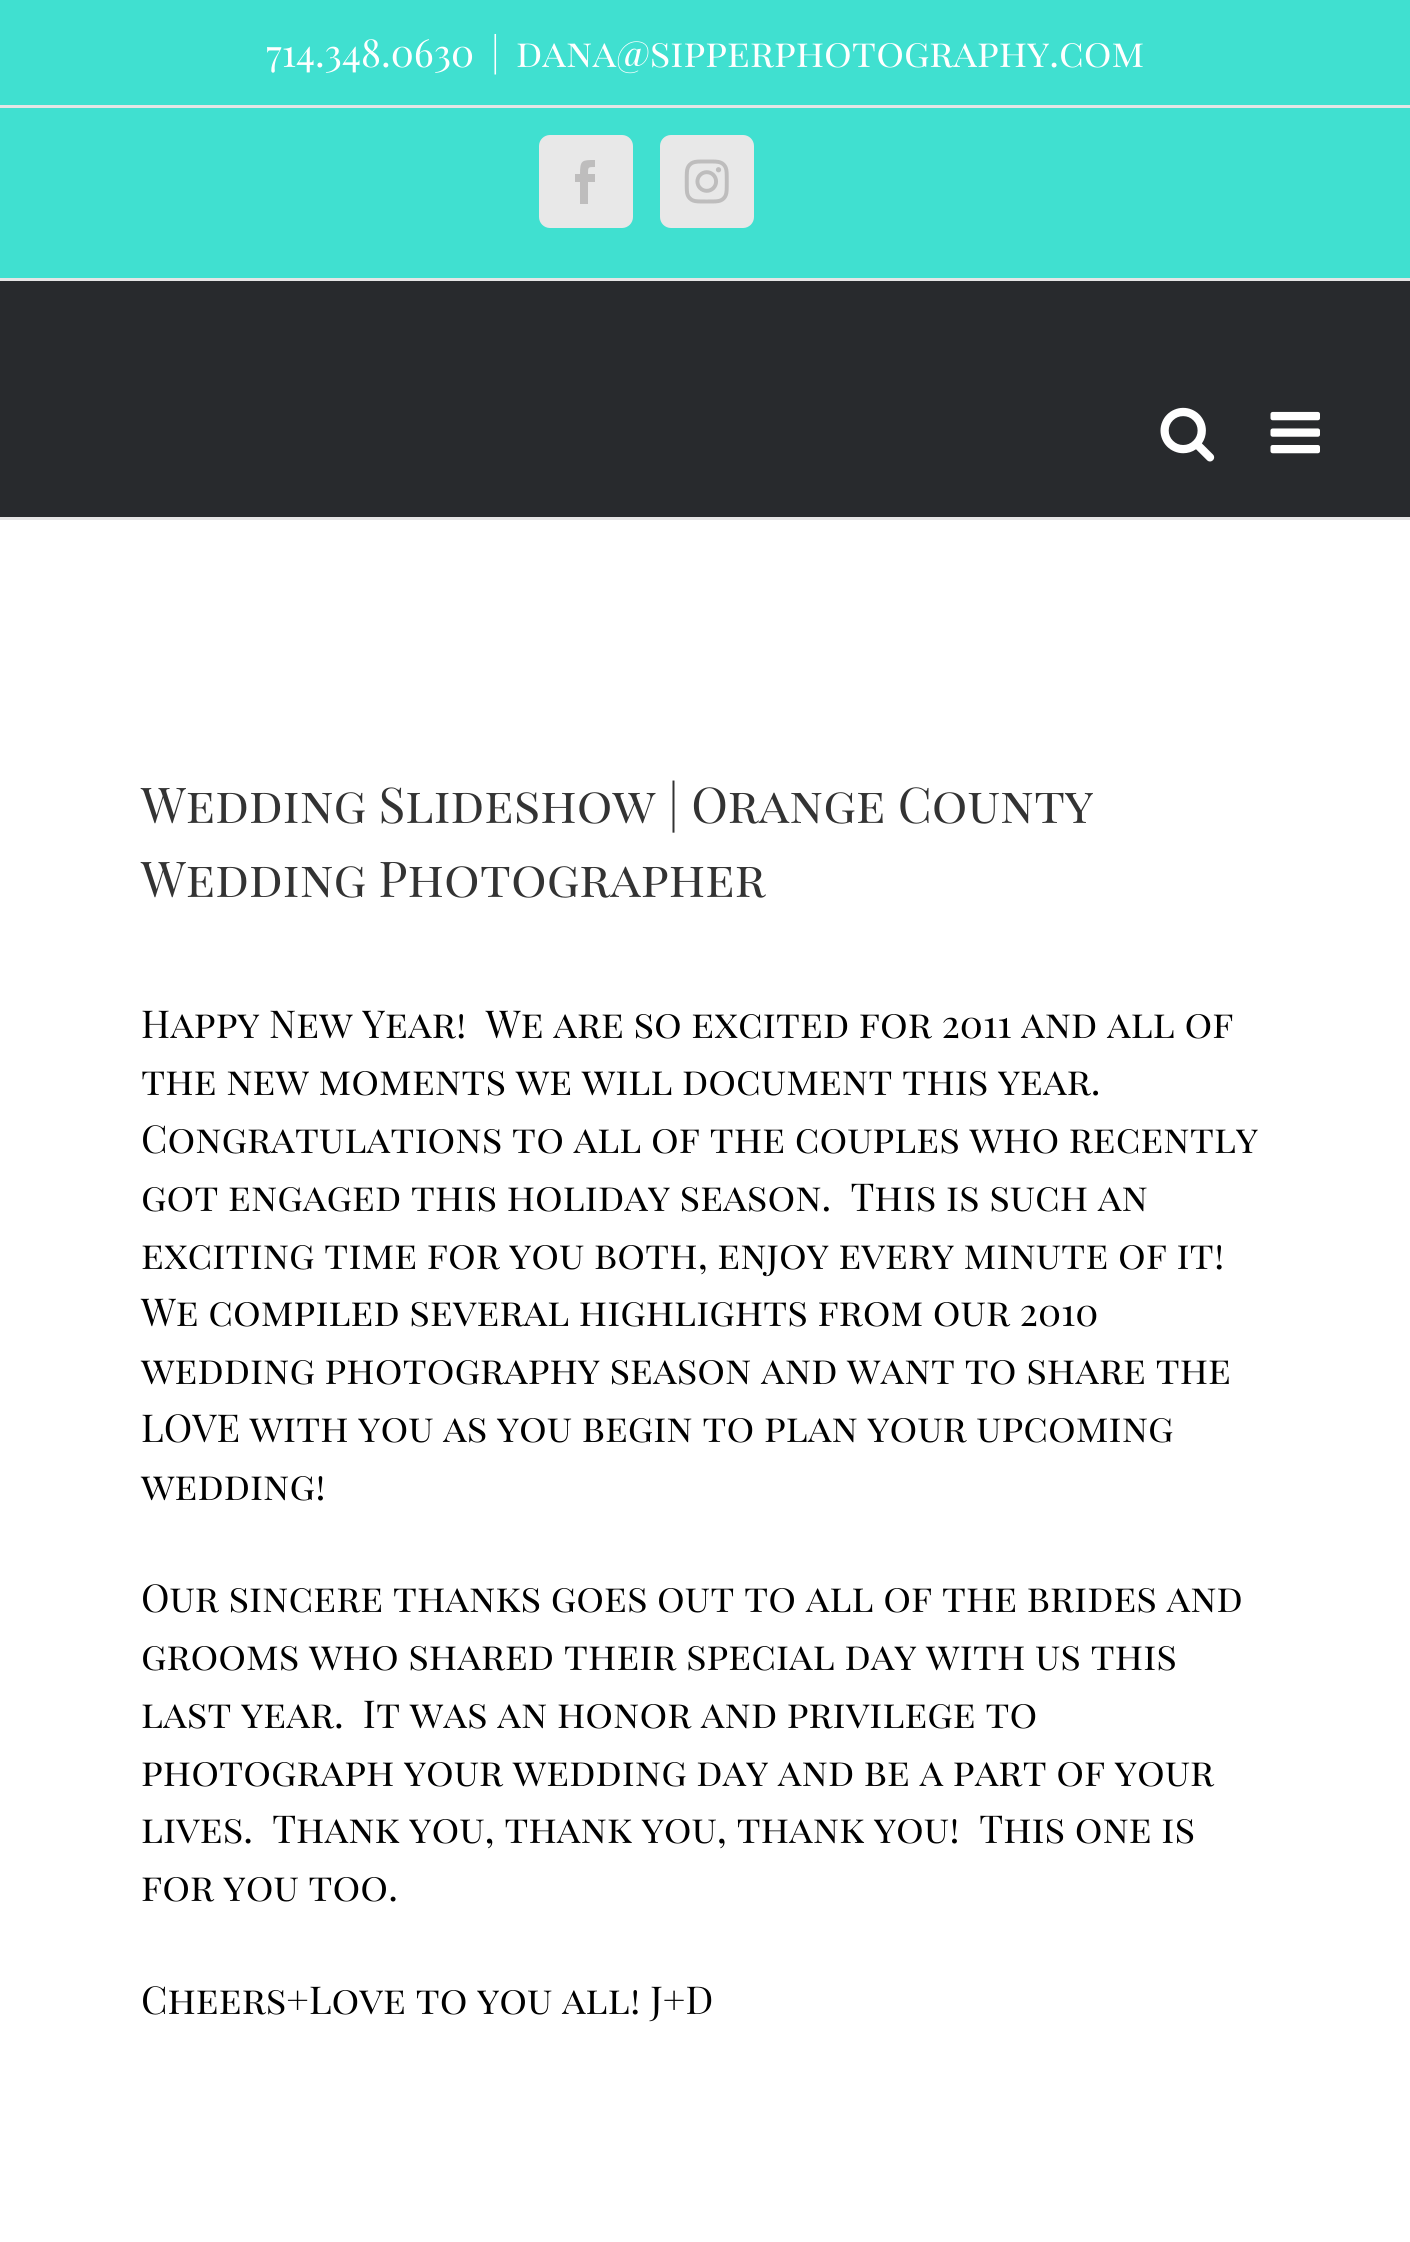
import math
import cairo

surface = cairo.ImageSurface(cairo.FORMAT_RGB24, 1410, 2242)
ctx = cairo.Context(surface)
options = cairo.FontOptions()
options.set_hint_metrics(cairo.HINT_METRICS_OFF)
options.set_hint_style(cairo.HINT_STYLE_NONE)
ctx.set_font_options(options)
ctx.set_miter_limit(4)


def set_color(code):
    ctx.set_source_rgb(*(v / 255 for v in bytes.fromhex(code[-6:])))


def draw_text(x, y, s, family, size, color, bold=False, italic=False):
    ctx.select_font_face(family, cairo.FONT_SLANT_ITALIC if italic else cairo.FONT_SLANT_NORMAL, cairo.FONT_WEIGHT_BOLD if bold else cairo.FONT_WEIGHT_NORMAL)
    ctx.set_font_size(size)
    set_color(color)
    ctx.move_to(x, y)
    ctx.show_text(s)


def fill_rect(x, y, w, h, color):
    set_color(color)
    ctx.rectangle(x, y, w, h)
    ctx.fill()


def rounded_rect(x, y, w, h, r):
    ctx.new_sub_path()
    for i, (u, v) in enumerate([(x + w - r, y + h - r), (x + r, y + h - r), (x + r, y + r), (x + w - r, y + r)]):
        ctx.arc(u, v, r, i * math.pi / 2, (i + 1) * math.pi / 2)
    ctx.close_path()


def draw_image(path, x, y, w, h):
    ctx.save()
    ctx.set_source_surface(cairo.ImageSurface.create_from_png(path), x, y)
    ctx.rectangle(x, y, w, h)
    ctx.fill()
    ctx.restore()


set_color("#ffffff")
ctx.paint()
fill_rect(0, 0, 1410, 278, "#40e0d0")
fill_rect(0, 278, 1410, 3, "#e5e5e5")
fill_rect(0, 105, 1410, 3, "#e5e5e5")
draw_text(266, 67, "714.348.0630", "Playfair Display SC", 38.5, "#ffffff")
draw_text(491, 67, "|", "Playfair Display SC", 38.5, "#ffffff")
draw_text(516, 67, "dana@sipperphotography.com", "Playfair Display SC", 38.5, "#ffffff")
set_color("#e8e8e8")
rounded_rect(540.5, 136.5, 91, 90, 9.5)
ctx.fill_preserve()
ctx.set_line_width(3)
ctx.stroke()
set_color("#bebdbd")
ctx.new_path()
ctx.move_to(588, 204)
ctx.line_to(580, 204)
ctx.line_to(580, 182)
ctx.line_to(575, 182)
ctx.line_to(575, 174)
ctx.line_to(580, 174)
ctx.curve_to(580, 160, 582, 160, 595, 160)
ctx.line_to(595, 167)
ctx.curve_to(588, 167, 588, 167, 588, 174)
ctx.line_to(595, 174)
ctx.line_to(595, 182)
ctx.line_to(588, 182)
ctx.close_path()
ctx.fill()
set_color("#e8e8e8")
rounded_rect(661.5, 136.5, 91, 90, 9.5)
ctx.fill_preserve()
ctx.stroke()
draw_image("assets/img1.png", 684, 159, 45, 45)
fill_rect(0, 281, 1410, 236, "#282a2d")
fill_rect(0, 517, 1410, 3, "#e5e5e5")
draw_image("assets/img2.png", 1160, 407, 55, 55)
draw_image("assets/img3.png", 1270, 411, 50, 43)
draw_text(141, 823, "Wedding Slideshow | Orange County", "Playfair Display SC", 49.5, "#333333")
draw_text(141, 897, "Wedding Photographer", "Playfair Display SC", 49.5, "#333333")
draw_text(141, 1038, "Happy New Year!  We are so excited for 2011 and all of", "Playfair Display SC", 38.5, "#000000")
draw_text(141, 1095, "the new moments we will document this year.", "Playfair Display SC", 38.5, "#000000")
draw_text(141, 1153, "Congratulations to all of the couples who recently", "Playfair Display SC", 38.5, "#000000")
draw_text(141, 1211, "got engaged this holiday season.  This is such an", "Playfair Display SC", 38.5, "#000000")
draw_text(141, 1269, "exciting time for you both, enjoy every minute of it!", "Playfair Display SC", 38.5, "#000000")
draw_text(141, 1326, "We compiled several highlights from our 2010", "Playfair Display SC", 38.5, "#000000")
draw_text(141, 1384, "wedding photography season and want to share the", "Playfair Display SC", 38.5, "#000000")
draw_text(141, 1442, "LOVE with you as you begin to plan your upcoming", "Playfair Display SC", 38.5, "#000000")
draw_text(141, 1500, "wedding!", "Playfair Display SC", 38.5, "#000000")
draw_text(141, 1612, "Our sincere thanks goes out to all of the brides and", "Playfair Display SC", 38.5, "#000000")
draw_text(141, 1670, "grooms who shared their special day with us this", "Playfair Display SC", 38.5, "#000000")
draw_text(141, 1728, "last year.  It was an honor and privilege to", "Playfair Display SC", 38.5, "#000000")
draw_text(141, 1786, "photograph your wedding day and be a part of your", "Playfair Display SC", 38.5, "#000000")
draw_text(141, 1843, "lives.  Thank you, thank you, thank you!  This one is", "Playfair Display SC", 38.5, "#000000")
draw_text(141, 1901, "for you too.", "Playfair Display SC", 38.5, "#000000")
draw_text(141, 2014, "Cheers+Love to you all! J+D", "Playfair Display SC", 38.5, "#000000")
surface.write_to_png("output.png")
